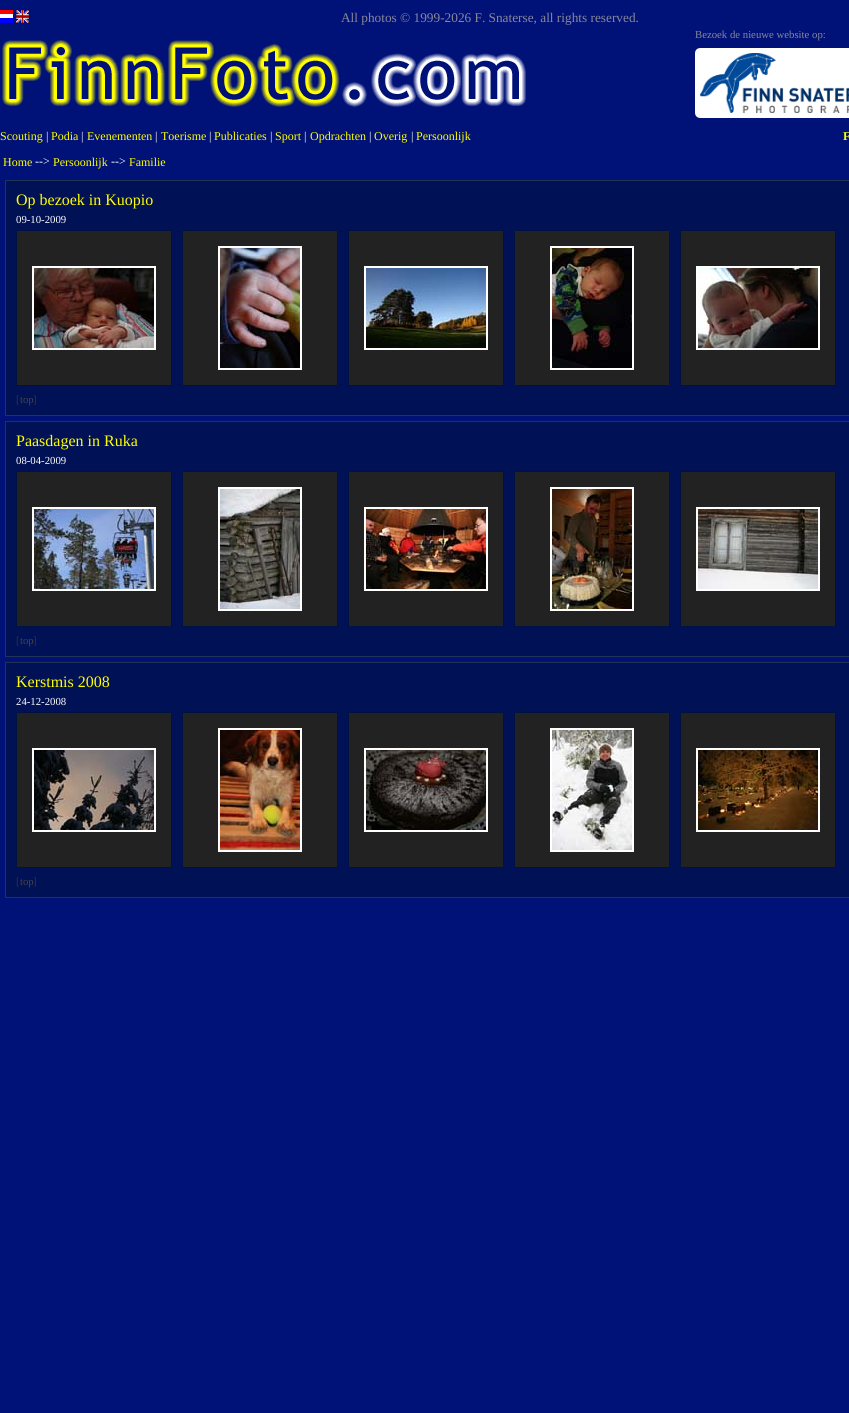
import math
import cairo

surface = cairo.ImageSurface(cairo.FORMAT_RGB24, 849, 1413)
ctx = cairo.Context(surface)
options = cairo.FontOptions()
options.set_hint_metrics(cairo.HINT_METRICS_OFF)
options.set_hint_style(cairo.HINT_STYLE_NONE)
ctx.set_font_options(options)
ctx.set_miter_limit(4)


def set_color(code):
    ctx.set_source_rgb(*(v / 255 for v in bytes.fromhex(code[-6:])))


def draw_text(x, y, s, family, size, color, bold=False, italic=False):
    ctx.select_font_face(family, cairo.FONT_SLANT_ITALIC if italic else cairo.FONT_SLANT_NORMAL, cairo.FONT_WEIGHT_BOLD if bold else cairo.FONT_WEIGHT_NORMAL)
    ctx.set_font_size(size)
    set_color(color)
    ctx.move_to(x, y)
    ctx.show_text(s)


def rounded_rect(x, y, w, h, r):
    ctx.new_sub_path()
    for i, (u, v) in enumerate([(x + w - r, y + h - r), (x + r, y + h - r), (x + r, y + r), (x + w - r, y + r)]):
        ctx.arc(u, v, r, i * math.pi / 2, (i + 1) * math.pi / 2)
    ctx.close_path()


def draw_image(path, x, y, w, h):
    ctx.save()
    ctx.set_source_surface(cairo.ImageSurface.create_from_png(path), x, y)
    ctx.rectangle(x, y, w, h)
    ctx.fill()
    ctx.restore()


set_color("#001177")
ctx.paint()
draw_image("assets/img1.png", 0, 10, 13, 13)
draw_image("assets/img2.png", 16, 10, 13, 13)
draw_text(341, 22, "All photos © 1999-2026 F. Snaterse, all rights reserved.", "Liberation Serif", 13.3, "#888899")
draw_text(695, 38, "Bezoek de nieuwe website op:", "Liberation Serif", 10.75, "#888899")
set_color("#ffffff")
rounded_rect(697.5, 50.5, 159, 65, 2.5)
ctx.fill_preserve()
ctx.set_line_width(5)
ctx.stroke()
draw_image("assets/img3.png", 700, 53, 149, 60)
draw_image("assets/img4.png", 2, 40, 524, 67)
draw_text(0, 140, "Scouting", "Liberation Serif", 12, "#ffff00")
draw_text(46, 140, "|", "Liberation Serif", 12, "#ffffff")
draw_text(51, 140, "Podia", "Liberation Serif", 12, "#ffff00")
draw_text(81, 140, "|", "Liberation Serif", 12, "#ffffff")
draw_text(87, 140, "Evenementen", "Liberation Serif", 12, "#ffff00")
draw_text(155, 140, "|", "Liberation Serif", 12, "#ffffff")
draw_text(161, 140, "Toerisme", "Liberation Serif", 12, "#ffff00")
draw_text(209, 140, "|", "Liberation Serif", 12, "#ffffff")
draw_text(214, 140, "Publicaties", "Liberation Serif", 12, "#ffff00")
draw_text(270, 140, "|", "Liberation Serif", 12, "#ffffff")
draw_text(275, 140, "Sport", "Liberation Serif", 12, "#ffff00")
draw_text(304, 140, "|", "Liberation Serif", 12, "#ffffff")
draw_text(310, 140, "Opdrachten", "Liberation Serif", 12, "#ffff00")
draw_text(369, 140, "|", "Liberation Serif", 12, "#ffffff")
draw_text(374, 140, "Overig", "Liberation Serif", 12, "#ffff00")
draw_text(411, 140, "|", "Liberation Serif", 12, "#ffffff")
draw_text(416, 140, "Persoonlijk", "Liberation Serif", 12, "#ffff00")
draw_text(843, 140, "F", "Liberation Serif", 12, "#ffff00", bold=True)
draw_text(3, 166, "Home", "Liberation Serif", 12, "#ffff00")
draw_text(35, 165, "-->", "Liberation Serif", 12, "#ffffff")
draw_text(53, 166, "Persoonlijk", "Liberation Serif", 12, "#ffff00")
draw_text(111, 165, "-->", "Liberation Serif", 12, "#ffffff")
draw_text(129, 166, "Familie", "Liberation Serif", 12, "#ffff00")
set_color("#001155")
ctx.rectangle(5.5, 180.5, 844, 235)
ctx.fill_preserve()
set_color("#223355")
ctx.set_line_width(1)
ctx.stroke()
draw_text(16, 205, "Op bezoek in Kuopio", "Liberation Serif", 16, "#ffff00")
draw_text(16, 223, "09-10-2009", "Liberation Serif", 10.75, "#ffffff")
set_color("#222222")
ctx.rectangle(16.5, 230.5, 155, 155)
ctx.fill_preserve()
set_color("#001144")
ctx.stroke()
ctx.rectangle(33, 267, 122, 82)
set_color("#ffffff")
ctx.set_line_width(2)
ctx.stroke()
draw_image("assets/img5.png", 34, 268, 120, 80)
set_color("#222222")
ctx.rectangle(182.5, 230.5, 155, 155)
ctx.fill_preserve()
set_color("#001144")
ctx.set_line_width(1)
ctx.stroke()
ctx.rectangle(219, 247, 82, 122)
set_color("#ffffff")
ctx.set_line_width(2)
ctx.stroke()
draw_image("assets/img6.png", 220, 248, 80, 120)
set_color("#222222")
ctx.rectangle(348.5, 230.5, 155, 155)
ctx.fill_preserve()
set_color("#001144")
ctx.set_line_width(1)
ctx.stroke()
ctx.rectangle(365, 267, 122, 82)
set_color("#ffffff")
ctx.set_line_width(2)
ctx.stroke()
draw_image("assets/img7.png", 366, 268, 120, 80)
set_color("#222222")
ctx.rectangle(514.5, 230.5, 155, 155)
ctx.fill_preserve()
set_color("#001144")
ctx.set_line_width(1)
ctx.stroke()
ctx.rectangle(551, 247, 82, 122)
set_color("#ffffff")
ctx.set_line_width(2)
ctx.stroke()
draw_image("assets/img8.png", 552, 248, 80, 120)
set_color("#222222")
ctx.rectangle(680.5, 230.5, 155, 155)
ctx.fill_preserve()
set_color("#001144")
ctx.set_line_width(1)
ctx.stroke()
ctx.rectangle(697, 267, 122, 82)
set_color("#ffffff")
ctx.set_line_width(2)
ctx.stroke()
draw_image("assets/img9.png", 698, 268, 120, 80)
draw_text(16, 403, "[", "Liberation Serif", 10.75, "#333344")
draw_text(20, 403, "top", "Liberation Serif", 10.75, "#444444")
draw_text(33, 403, "]", "Liberation Serif", 10.75, "#333344")
set_color("#001155")
ctx.rectangle(5.5, 421.5, 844, 235)
ctx.fill_preserve()
set_color("#223355")
ctx.set_line_width(1)
ctx.stroke()
draw_text(16, 446, "Paasdagen in Ruka", "Liberation Serif", 16, "#ffff00")
draw_text(16, 464, "08-04-2009", "Liberation Serif", 10.75, "#ffffff")
set_color("#222222")
ctx.rectangle(16.5, 471.5, 155, 155)
ctx.fill_preserve()
set_color("#001144")
ctx.stroke()
ctx.rectangle(33, 508, 122, 82)
set_color("#ffffff")
ctx.set_line_width(2)
ctx.stroke()
draw_image("assets/img10.png", 34, 509, 120, 80)
set_color("#222222")
ctx.rectangle(182.5, 471.5, 155, 155)
ctx.fill_preserve()
set_color("#001144")
ctx.set_line_width(1)
ctx.stroke()
ctx.rectangle(219, 488, 82, 122)
set_color("#ffffff")
ctx.set_line_width(2)
ctx.stroke()
draw_image("assets/img11.png", 220, 489, 80, 120)
set_color("#222222")
ctx.rectangle(348.5, 471.5, 155, 155)
ctx.fill_preserve()
set_color("#001144")
ctx.set_line_width(1)
ctx.stroke()
ctx.rectangle(365, 508, 122, 82)
set_color("#ffffff")
ctx.set_line_width(2)
ctx.stroke()
draw_image("assets/img12.png", 366, 509, 120, 80)
set_color("#222222")
ctx.rectangle(514.5, 471.5, 155, 155)
ctx.fill_preserve()
set_color("#001144")
ctx.set_line_width(1)
ctx.stroke()
ctx.rectangle(551, 488, 82, 122)
set_color("#ffffff")
ctx.set_line_width(2)
ctx.stroke()
draw_image("assets/img13.png", 552, 489, 80, 120)
set_color("#222222")
ctx.rectangle(680.5, 471.5, 155, 155)
ctx.fill_preserve()
set_color("#001144")
ctx.set_line_width(1)
ctx.stroke()
ctx.rectangle(697, 508, 122, 82)
set_color("#ffffff")
ctx.set_line_width(2)
ctx.stroke()
draw_image("assets/img14.png", 698, 509, 120, 80)
draw_text(16, 644, "[", "Liberation Serif", 10.75, "#333344")
draw_text(20, 644, "top", "Liberation Serif", 10.75, "#444444")
draw_text(33, 644, "]", "Liberation Serif", 10.75, "#333344")
set_color("#001155")
ctx.rectangle(5.5, 662.5, 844, 235)
ctx.fill_preserve()
set_color("#223355")
ctx.set_line_width(1)
ctx.stroke()
draw_text(16, 687, "Kerstmis 2008", "Liberation Serif", 16, "#ffff00")
draw_text(16, 705, "24-12-2008", "Liberation Serif", 10.75, "#ffffff")
set_color("#222222")
ctx.rectangle(16.5, 712.5, 155, 155)
ctx.fill_preserve()
set_color("#001144")
ctx.stroke()
ctx.rectangle(33, 749, 122, 82)
set_color("#ffffff")
ctx.set_line_width(2)
ctx.stroke()
draw_image("assets/img15.png", 34, 750, 120, 80)
set_color("#222222")
ctx.rectangle(182.5, 712.5, 155, 155)
ctx.fill_preserve()
set_color("#001144")
ctx.set_line_width(1)
ctx.stroke()
ctx.rectangle(219, 729, 82, 122)
set_color("#ffffff")
ctx.set_line_width(2)
ctx.stroke()
draw_image("assets/img16.png", 220, 730, 80, 120)
set_color("#222222")
ctx.rectangle(348.5, 712.5, 155, 155)
ctx.fill_preserve()
set_color("#001144")
ctx.set_line_width(1)
ctx.stroke()
ctx.rectangle(365, 749, 122, 82)
set_color("#ffffff")
ctx.set_line_width(2)
ctx.stroke()
draw_image("assets/img17.png", 366, 750, 120, 80)
set_color("#222222")
ctx.rectangle(514.5, 712.5, 155, 155)
ctx.fill_preserve()
set_color("#001144")
ctx.set_line_width(1)
ctx.stroke()
ctx.rectangle(551, 729, 82, 122)
set_color("#ffffff")
ctx.set_line_width(2)
ctx.stroke()
draw_image("assets/img18.png", 552, 730, 80, 120)
set_color("#222222")
ctx.rectangle(680.5, 712.5, 155, 155)
ctx.fill_preserve()
set_color("#001144")
ctx.set_line_width(1)
ctx.stroke()
ctx.rectangle(697, 749, 122, 82)
set_color("#ffffff")
ctx.set_line_width(2)
ctx.stroke()
draw_image("assets/img19.png", 698, 750, 120, 80)
draw_text(16, 885, "[", "Liberation Serif", 10.75, "#333344")
draw_text(20, 885, "top", "Liberation Serif", 10.75, "#444444")
draw_text(33, 885, "]", "Liberation Serif", 10.75, "#333344")
surface.write_to_png("output.png")
